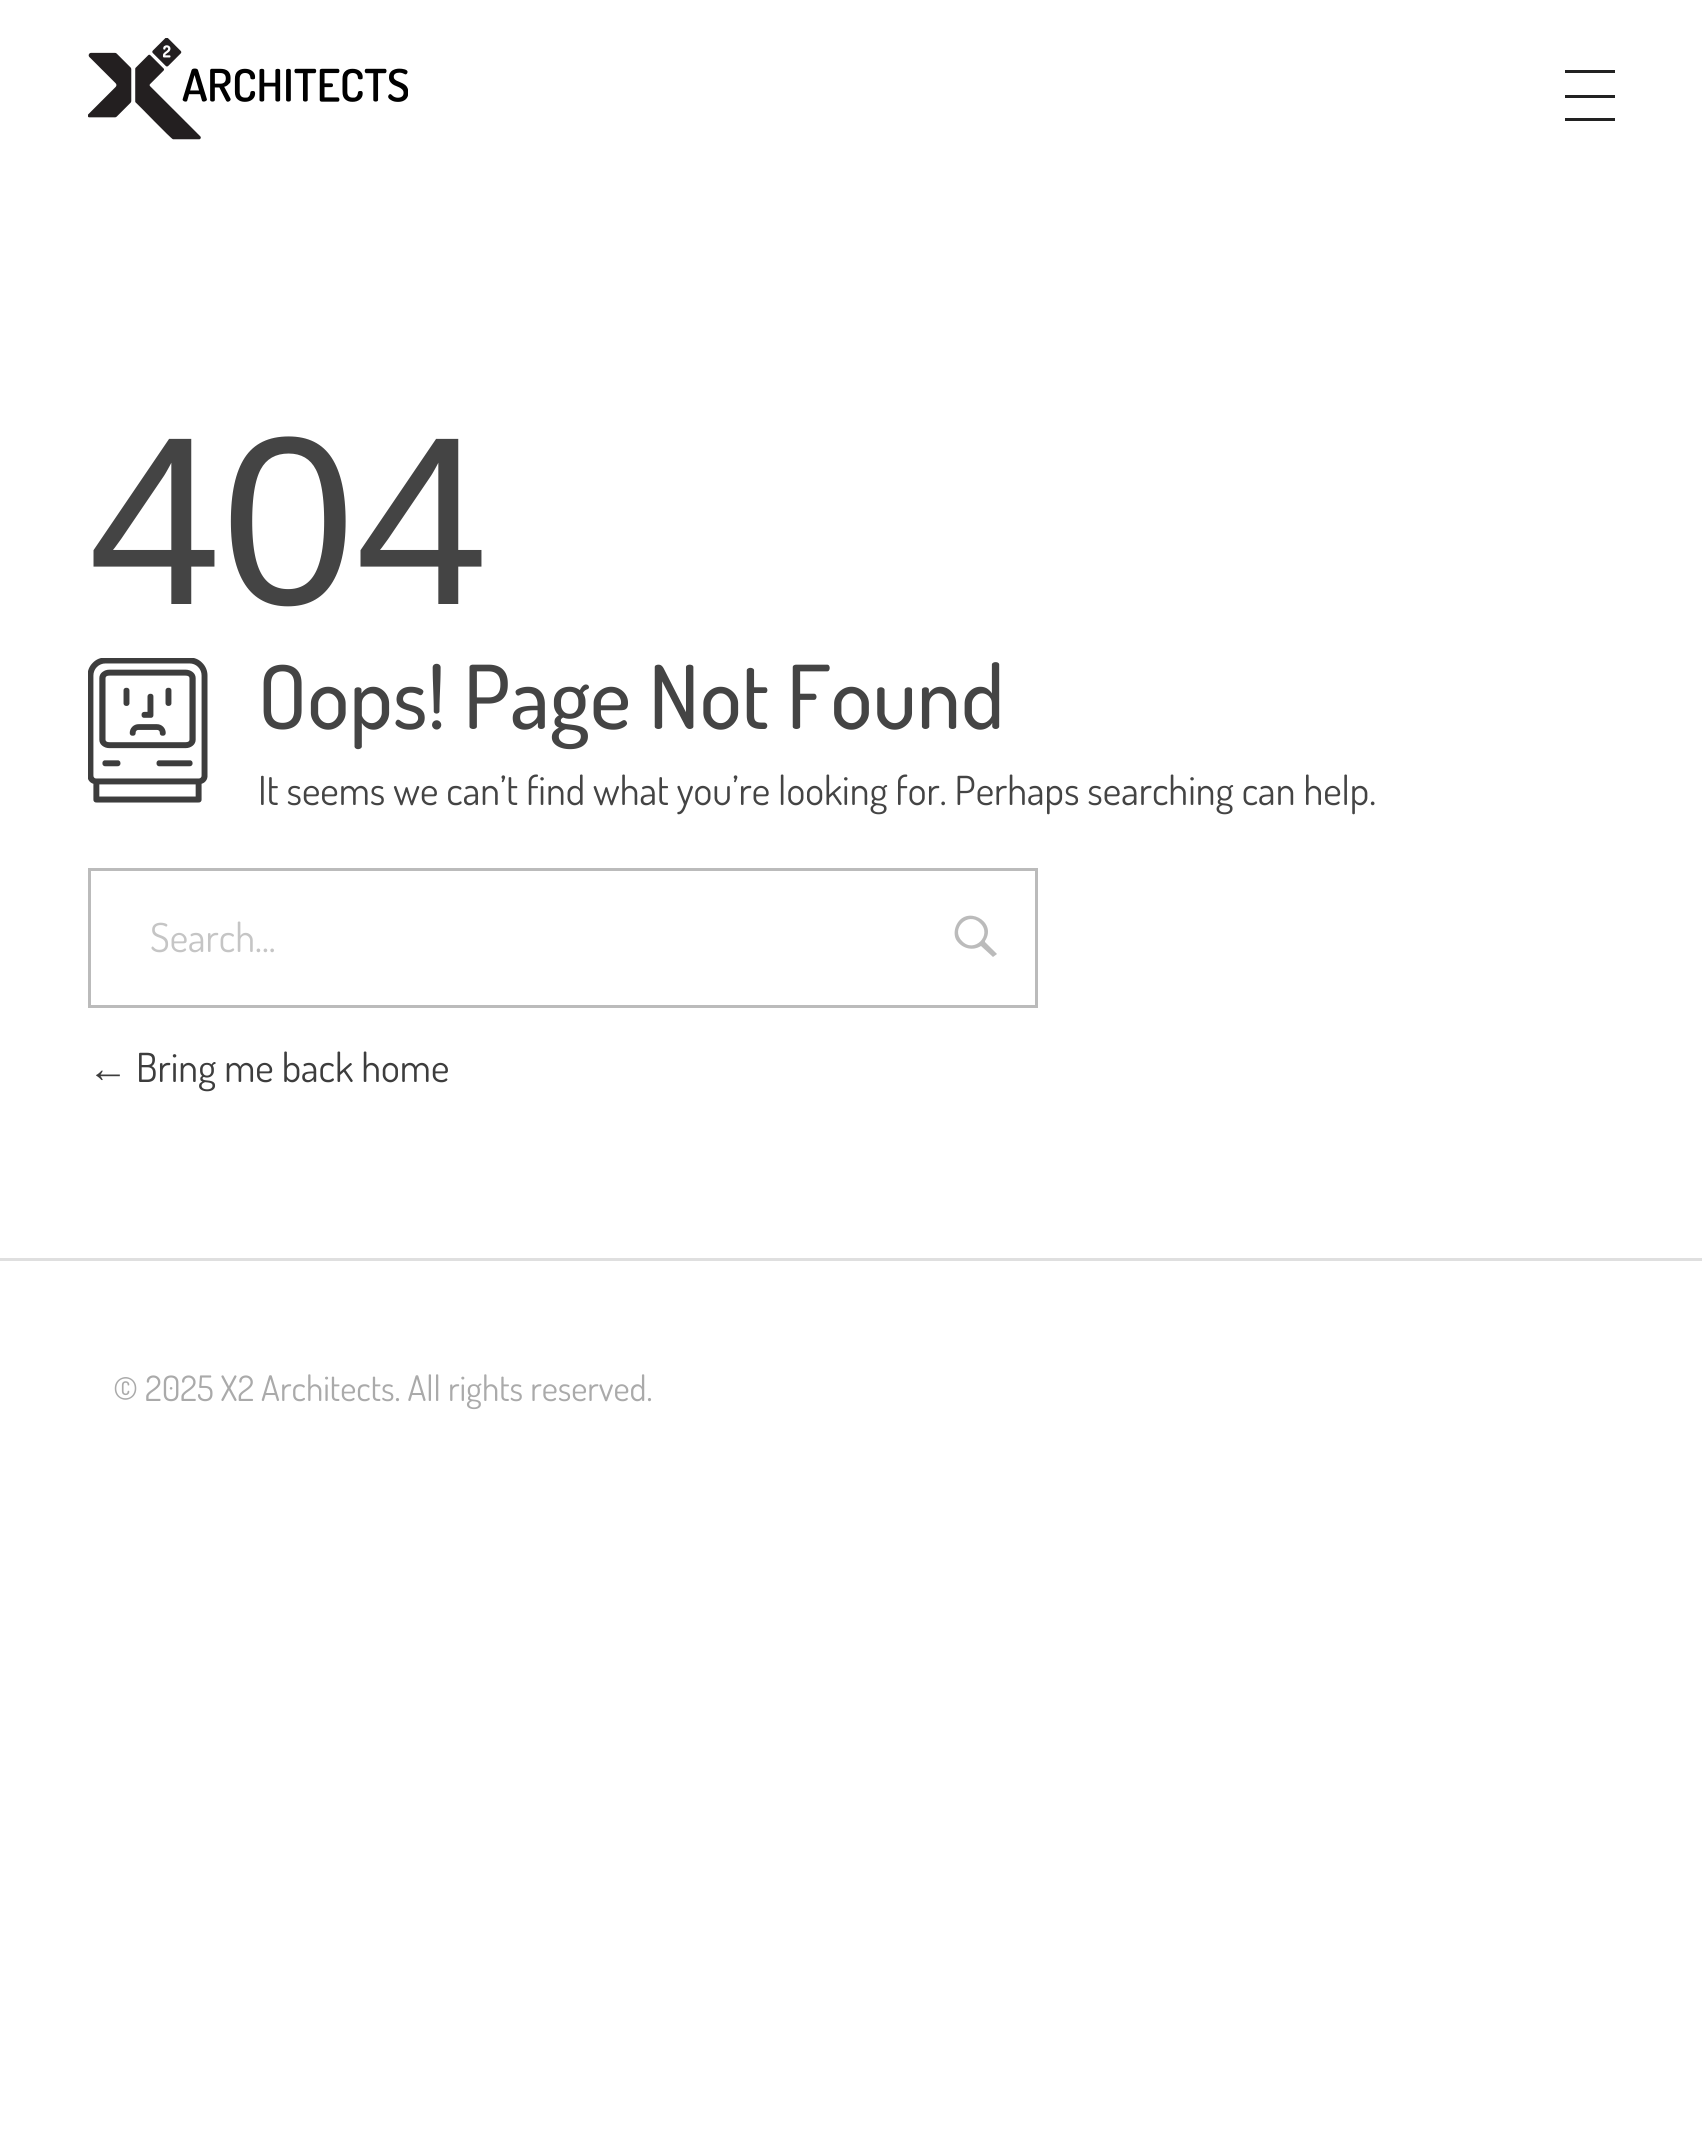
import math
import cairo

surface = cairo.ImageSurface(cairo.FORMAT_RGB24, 1702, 2142)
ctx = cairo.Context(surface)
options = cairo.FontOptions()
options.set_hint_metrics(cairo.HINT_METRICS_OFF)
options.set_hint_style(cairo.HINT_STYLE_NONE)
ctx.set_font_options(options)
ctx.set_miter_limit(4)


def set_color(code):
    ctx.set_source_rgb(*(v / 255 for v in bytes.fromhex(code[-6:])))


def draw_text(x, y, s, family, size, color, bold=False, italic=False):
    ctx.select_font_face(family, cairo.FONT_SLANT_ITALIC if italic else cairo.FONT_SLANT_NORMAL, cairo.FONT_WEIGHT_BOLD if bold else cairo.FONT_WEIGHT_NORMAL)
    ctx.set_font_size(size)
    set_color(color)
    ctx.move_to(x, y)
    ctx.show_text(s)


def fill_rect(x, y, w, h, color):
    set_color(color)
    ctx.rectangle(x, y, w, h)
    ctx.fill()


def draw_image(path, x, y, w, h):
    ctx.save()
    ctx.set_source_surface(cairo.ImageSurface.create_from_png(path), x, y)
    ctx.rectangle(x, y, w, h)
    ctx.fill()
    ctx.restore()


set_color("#ffffff")
ctx.paint()
draw_image("assets/img1.png", 88, 38, 320, 102)
fill_rect(1565, 70, 50, 3, "#222222")
fill_rect(1565, 95, 50, 3, "#222222")
fill_rect(1565, 118, 50, 3, "#222222")
draw_text(88, 604, "404", "Liberation Sans", 240, "#444444")
draw_image("assets/img2.png", 88, 658, 120, 145)
draw_text(258, 729, "Oops! Page Not Found", "Dosis Medium", 88, "#444444")
draw_text(258, 805, "It seems we can’t find what you’re looking for. Perhaps searching can help.", "Dosis", 40, "#444444")
ctx.rectangle(89.5, 869.5, 947, 137)
set_color("#bbbbbb")
ctx.set_line_width(3)
ctx.stroke()
draw_text(150, 952, "Search...", "Dosis", 40, "#c5c5c5")
set_color("#bbbbbb")
ctx.new_path()
ctx.move_to(985, 941)
ctx.curve_to(998, 921, 965, 904, 956, 926)
ctx.curve_to(954, 931, 954, 937, 957, 941)
ctx.curve_to(963, 949, 973, 951, 981, 946)
ctx.line_to(993, 957)
ctx.line_to(997, 954)
ctx.line_to(985, 942)
ctx.close_path()
ctx.move_to(980, 923)
ctx.curve_to(993, 935, 974, 954, 962, 941)
ctx.curve_to(950, 929, 968, 911, 980, 923)
ctx.close_path()
ctx.fill()
draw_text(88, 1082, "←", "Liberation Sans", 40, "#3d3d3d")
draw_text(136, 1082, "Bring me back home", "Dosis", 40, "#3d3d3d")
fill_rect(0, 1258, 1702, 3, "#dfdfdf")
draw_text(113, 1401, "© 2025 X2 Architects. All rights reserved.", "Dosis", 35, "#aaaaaa")
surface.write_to_png("output.png")
